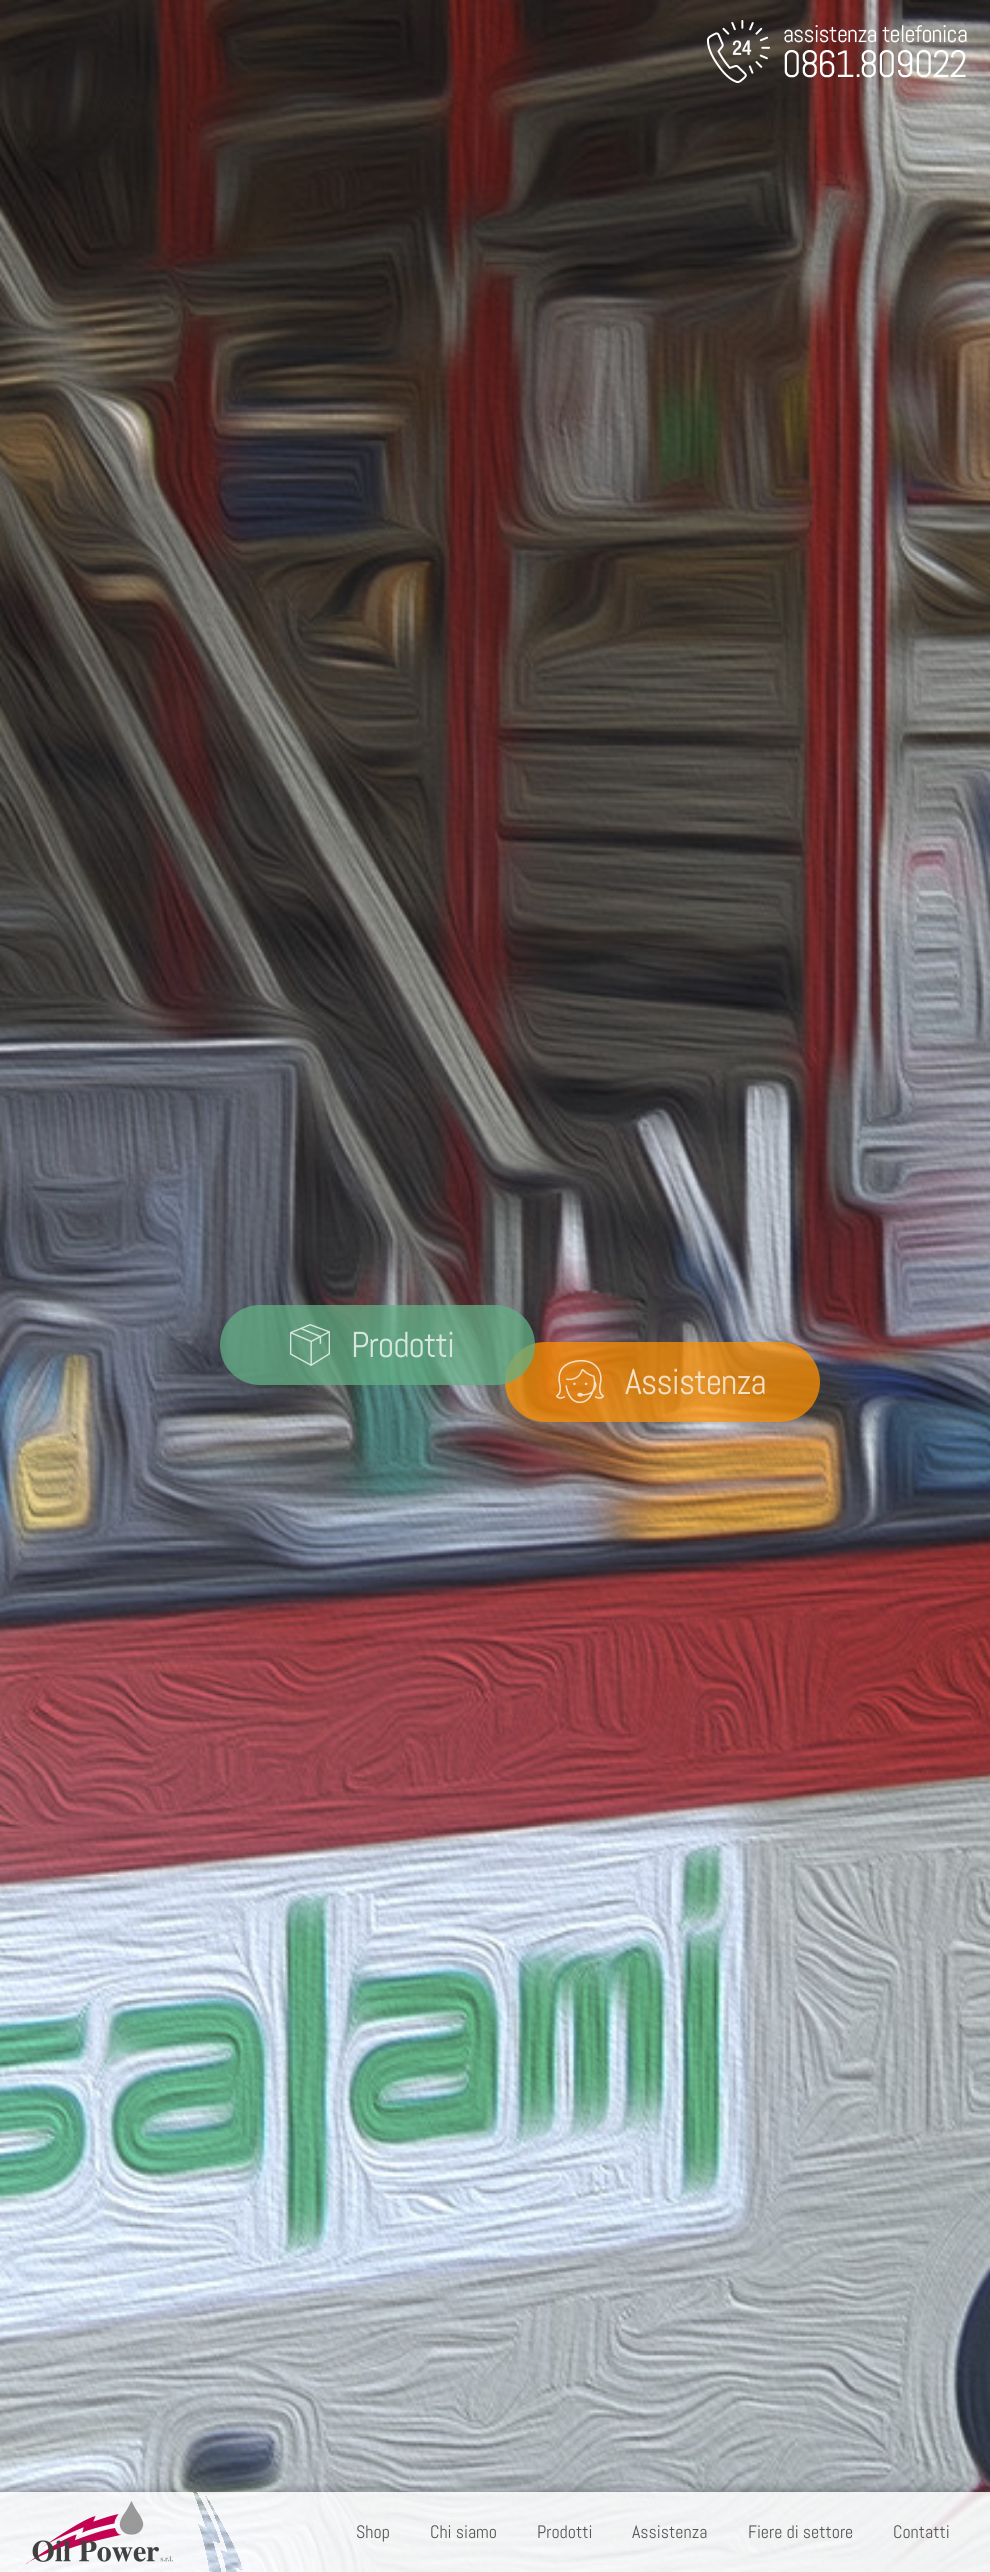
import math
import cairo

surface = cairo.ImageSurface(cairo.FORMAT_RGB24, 990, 2572)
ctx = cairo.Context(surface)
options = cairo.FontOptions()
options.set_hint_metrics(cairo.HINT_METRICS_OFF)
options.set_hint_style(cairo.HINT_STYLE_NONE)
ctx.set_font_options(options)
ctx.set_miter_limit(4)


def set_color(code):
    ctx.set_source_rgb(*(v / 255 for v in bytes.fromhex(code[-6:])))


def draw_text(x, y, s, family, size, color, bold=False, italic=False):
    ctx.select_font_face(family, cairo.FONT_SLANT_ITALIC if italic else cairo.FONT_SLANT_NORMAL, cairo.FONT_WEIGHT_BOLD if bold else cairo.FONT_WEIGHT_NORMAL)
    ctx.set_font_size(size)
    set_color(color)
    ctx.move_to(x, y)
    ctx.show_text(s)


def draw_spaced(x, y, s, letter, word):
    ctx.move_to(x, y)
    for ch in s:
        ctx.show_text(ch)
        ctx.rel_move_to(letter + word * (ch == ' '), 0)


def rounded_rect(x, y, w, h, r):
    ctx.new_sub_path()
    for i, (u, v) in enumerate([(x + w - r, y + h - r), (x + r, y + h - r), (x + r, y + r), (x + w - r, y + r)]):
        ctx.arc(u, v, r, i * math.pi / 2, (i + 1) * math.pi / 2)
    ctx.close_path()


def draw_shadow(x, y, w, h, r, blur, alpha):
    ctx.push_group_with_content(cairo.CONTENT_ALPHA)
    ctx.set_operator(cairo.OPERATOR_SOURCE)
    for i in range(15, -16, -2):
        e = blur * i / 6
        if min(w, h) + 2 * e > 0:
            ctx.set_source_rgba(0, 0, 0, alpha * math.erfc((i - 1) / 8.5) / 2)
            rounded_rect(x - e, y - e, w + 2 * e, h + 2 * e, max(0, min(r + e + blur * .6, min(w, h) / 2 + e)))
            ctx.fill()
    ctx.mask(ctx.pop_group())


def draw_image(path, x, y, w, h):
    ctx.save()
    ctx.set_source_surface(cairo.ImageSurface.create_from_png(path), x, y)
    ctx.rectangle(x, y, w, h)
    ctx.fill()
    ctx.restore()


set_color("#ffffff")
ctx.paint()
draw_image("assets/img1.png", 0, 0, 990, 2572)
draw_image("assets/img2.png", 707, 20, 260, 63)
ctx.set_source_rgba(1, 0.565, 0, 0.74)
rounded_rect(505, 1342, 315, 80, 40)
ctx.fill()
ctx.set_source_rgba(0.388, 0.69, 0.522, 0.74)
rounded_rect(220, 1305, 315, 80, 40)
ctx.fill()
draw_image("assets/img3.png", 290, 1324, 40, 42)
ctx.select_font_face("Abel")
ctx.set_font_size(36)
set_color("#d7e7de")
draw_spaced(351, 1357, "Prodotti", -1, 0)
draw_image("assets/img4.png", 556, 1360, 48, 43)
set_color("#f5e0c5")
draw_spaced(625, 1394, "Assistenza", -1, 0)
ctx.save()
ctx.rectangle(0, 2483, 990, 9)
ctx.clip()
set_color("#000000")
draw_shadow(-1, 2490, 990, 80, 0, 5, 0.3)
ctx.restore()
draw_image("assets/img5.png", 0, 2492, 263, 80)
ctx.set_source_rgba(1, 1, 1, 0.84)
ctx.rectangle(263, 2492, 727, 80)
ctx.fill()
draw_text(356, 2538, "Shop", "Abel", 18, "#575757")
draw_text(430, 2538, "Chi siamo", "Abel", 18, "#575757")
draw_text(537, 2538, "Prodotti", "Abel", 18, "#575757")
draw_text(632, 2538, "Assistenza", "Abel", 18, "#575757")
draw_text(748, 2538, "Fiere di settore", "Abel", 18, "#575757")
draw_text(893, 2538, "Contatti", "Abel", 18, "#575757")
surface.write_to_png("output.png")
